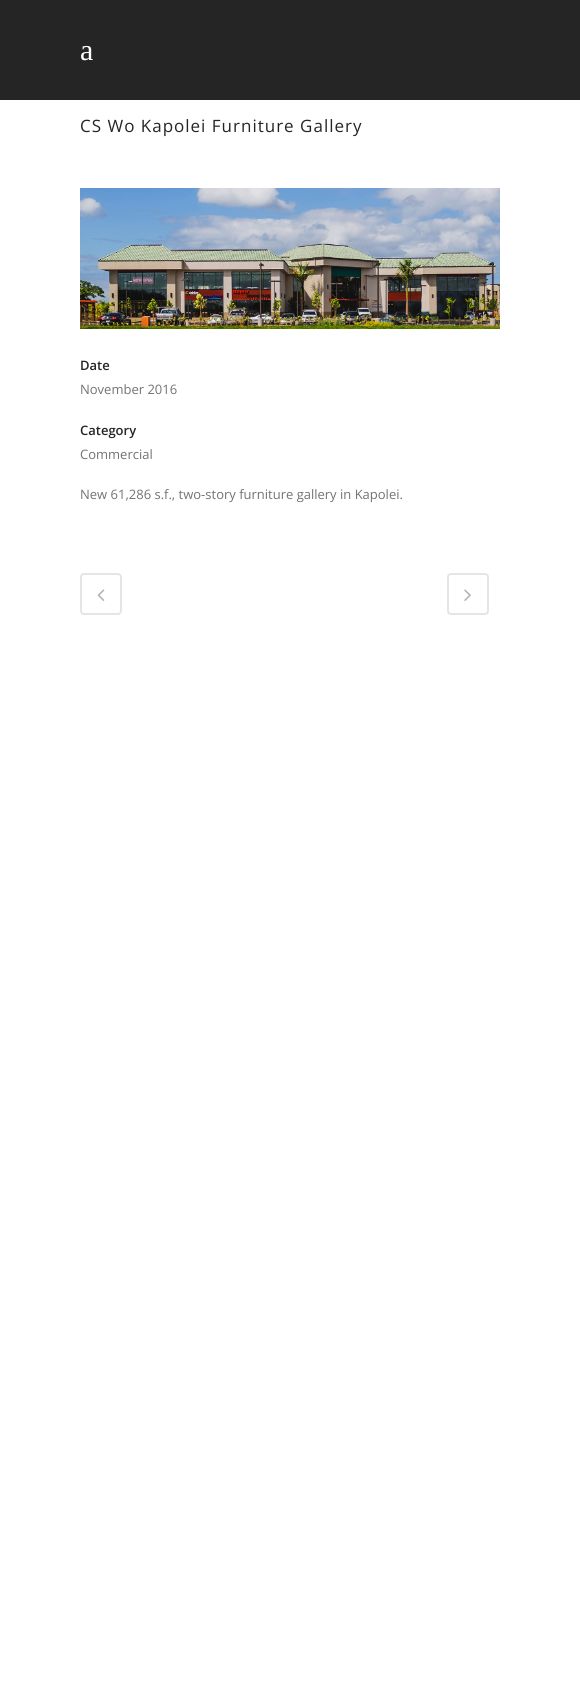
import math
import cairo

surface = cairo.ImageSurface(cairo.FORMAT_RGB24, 580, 1682)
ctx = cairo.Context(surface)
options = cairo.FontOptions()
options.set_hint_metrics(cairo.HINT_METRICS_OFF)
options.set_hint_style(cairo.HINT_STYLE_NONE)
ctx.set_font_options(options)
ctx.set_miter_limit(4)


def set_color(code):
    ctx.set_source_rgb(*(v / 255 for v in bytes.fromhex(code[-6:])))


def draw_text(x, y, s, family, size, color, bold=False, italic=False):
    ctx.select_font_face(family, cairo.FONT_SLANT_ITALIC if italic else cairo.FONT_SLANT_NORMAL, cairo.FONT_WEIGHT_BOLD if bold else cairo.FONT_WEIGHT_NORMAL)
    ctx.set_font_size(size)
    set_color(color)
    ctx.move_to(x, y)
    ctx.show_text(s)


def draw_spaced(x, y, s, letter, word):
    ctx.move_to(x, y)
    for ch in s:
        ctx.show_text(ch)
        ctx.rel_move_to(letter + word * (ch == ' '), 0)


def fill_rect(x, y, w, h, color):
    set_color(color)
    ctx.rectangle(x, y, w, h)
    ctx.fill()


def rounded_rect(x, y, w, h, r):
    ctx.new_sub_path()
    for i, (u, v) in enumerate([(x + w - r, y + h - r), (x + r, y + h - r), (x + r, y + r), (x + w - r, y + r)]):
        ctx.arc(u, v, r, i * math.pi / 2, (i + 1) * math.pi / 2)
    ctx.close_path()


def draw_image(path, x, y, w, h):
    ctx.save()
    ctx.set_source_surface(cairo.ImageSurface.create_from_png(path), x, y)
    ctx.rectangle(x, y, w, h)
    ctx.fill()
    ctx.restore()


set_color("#ffffff")
ctx.paint()
fill_rect(0, 0, 580, 100, "#252525")
draw_text(80, 60, "a", "Liberation Serif", 30, "#ffffff")
ctx.select_font_face("Open Sans")
ctx.set_font_size(17)
set_color("#252525")
draw_spaced(80, 132, "CS Wo Kapolei Furniture Gallery", 1, 0)
draw_image("assets/img1.png", 80, 188, 420, 141)
draw_text(80, 370, "Date", "Open Sans SemiBold", 13, "#252525")
draw_text(80, 394, "November 2016", "Open Sans", 13, "#737373")
draw_text(80, 435, "Category", "Open Sans SemiBold", 13, "#252525")
draw_text(80, 459, "Commercial", "Open Sans", 13, "#737373")
draw_text(80, 499, "New 61,286 s.f., two-story furniture gallery in Kapolei.", "Open Sans", 13, "#737373")
rounded_rect(81, 574, 40, 40, 3)
set_color("#e5e5e5")
ctx.stroke()
draw_image("assets/img2.png", 97, 589, 8, 12)
rounded_rect(448, 574, 40, 40, 3)
ctx.stroke()
draw_image("assets/img3.png", 464, 589, 7, 12)
surface.write_to_png("output.png")
